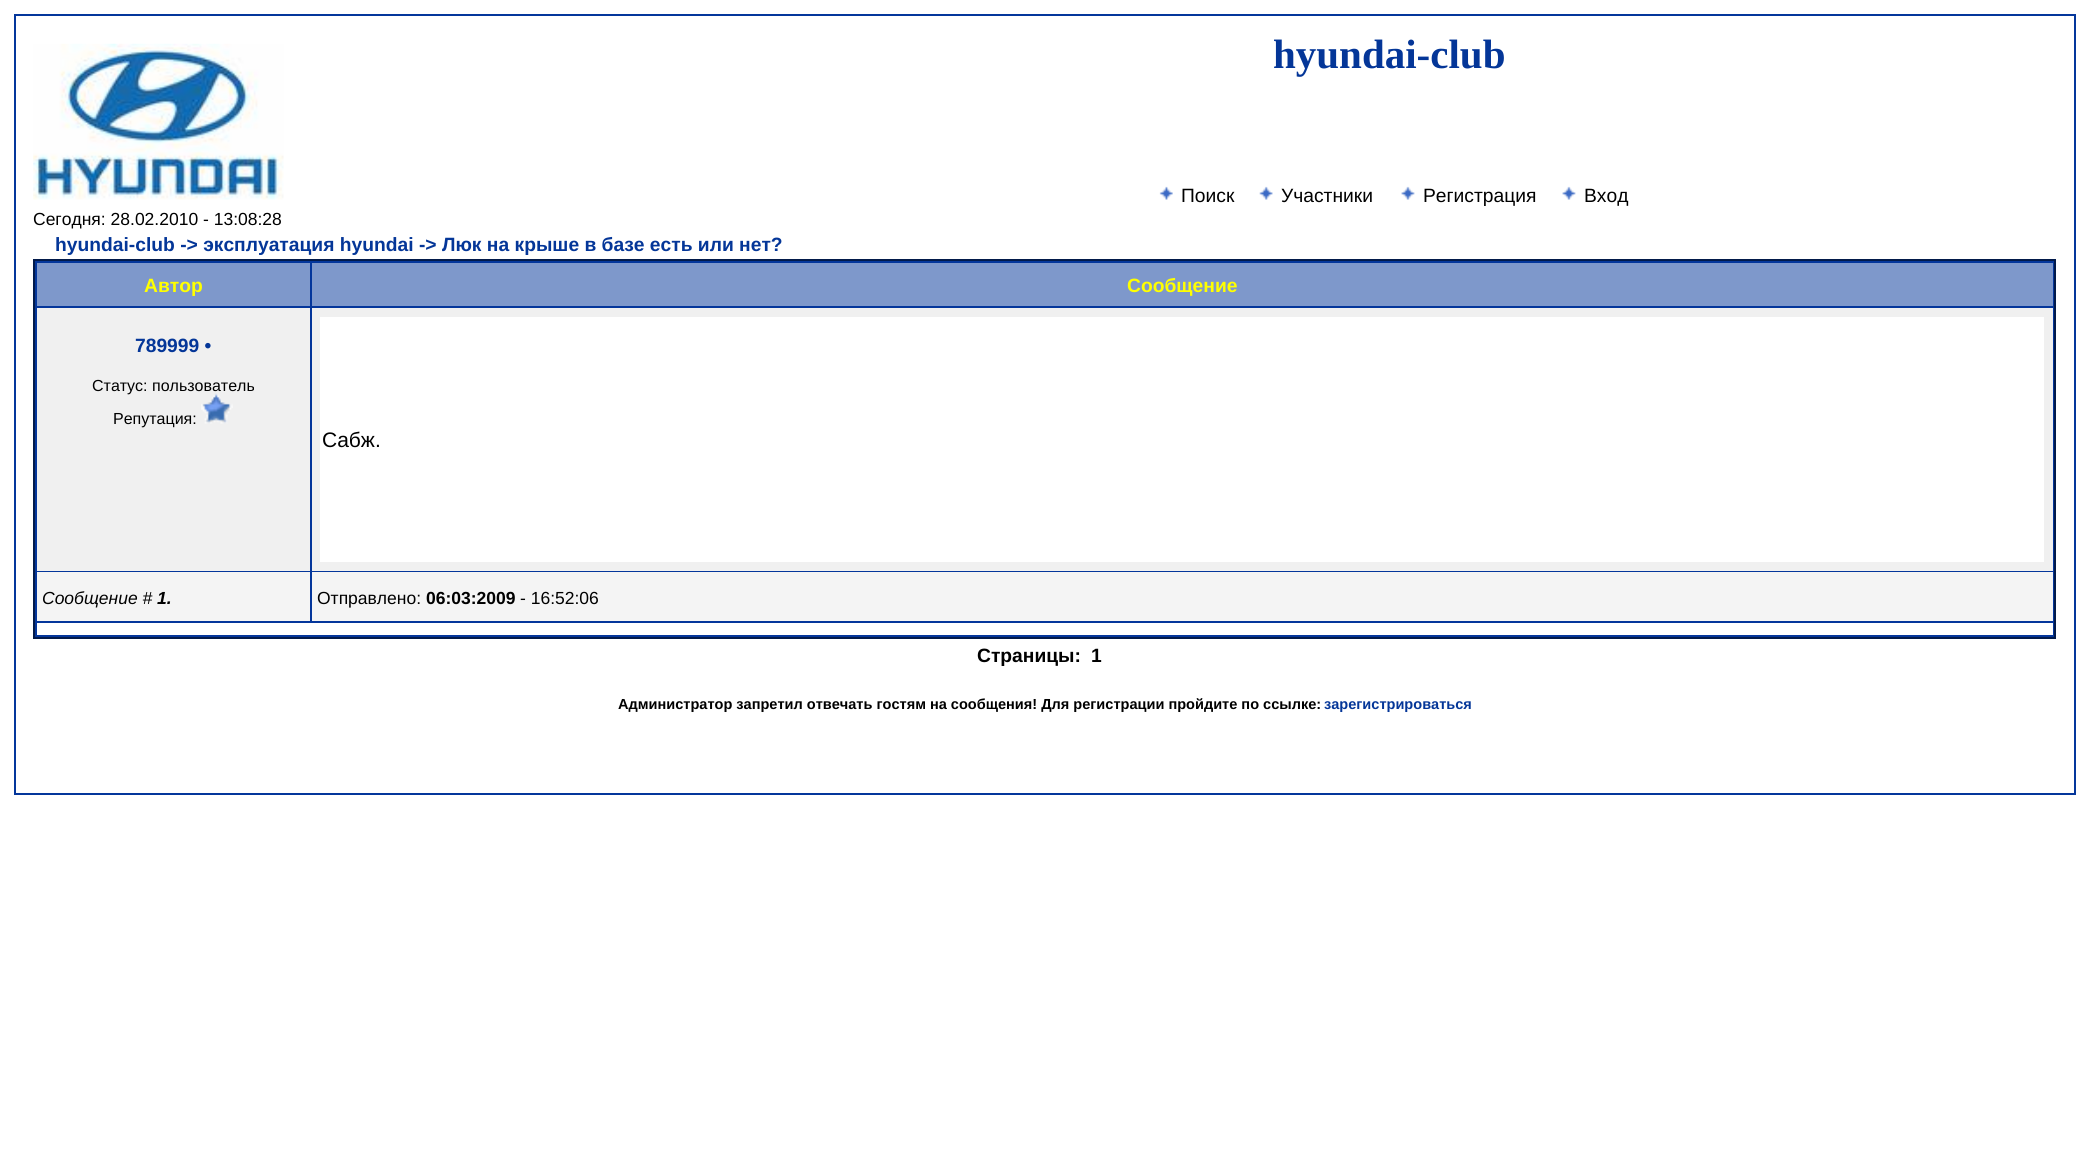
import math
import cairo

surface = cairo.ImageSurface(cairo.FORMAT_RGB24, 2088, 1152)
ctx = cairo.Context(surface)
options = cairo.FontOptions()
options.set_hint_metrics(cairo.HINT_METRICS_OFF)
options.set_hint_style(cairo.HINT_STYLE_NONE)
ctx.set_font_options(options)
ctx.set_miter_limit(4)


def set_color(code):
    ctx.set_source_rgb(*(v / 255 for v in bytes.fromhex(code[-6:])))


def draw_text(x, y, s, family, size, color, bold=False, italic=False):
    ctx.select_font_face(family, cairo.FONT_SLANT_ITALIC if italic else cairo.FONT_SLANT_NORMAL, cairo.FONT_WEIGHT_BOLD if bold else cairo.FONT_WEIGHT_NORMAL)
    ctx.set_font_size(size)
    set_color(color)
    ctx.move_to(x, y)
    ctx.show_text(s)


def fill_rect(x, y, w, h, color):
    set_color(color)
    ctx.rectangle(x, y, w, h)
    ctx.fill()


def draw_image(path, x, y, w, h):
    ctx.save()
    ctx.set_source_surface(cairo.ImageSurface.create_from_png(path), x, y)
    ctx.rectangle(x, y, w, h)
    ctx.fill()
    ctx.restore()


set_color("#ffffff")
ctx.paint()
ctx.rectangle(15, 15, 2060, 779)
set_color("#04369b")
ctx.stroke()
draw_image("assets/img1.png", 33, 43, 251, 157)
draw_text(1273, 68, "hyundai-club", "Liberation Serif", 41, "#043698", bold=True)
draw_image("assets/img2.png", 1159, 186, 14, 14)
draw_text(1181, 202, "Поиск", "Liberation Sans", 19.25, "#000000")
draw_image("assets/img3.png", 1259, 186, 14, 14)
draw_text(1281, 202, "Участники", "Liberation Sans", 19.25, "#000000")
draw_image("assets/img4.png", 1401, 186, 14, 14)
draw_text(1423, 202, "Регистрация", "Liberation Sans", 19.25, "#000000")
draw_image("assets/img5.png", 1562, 186, 14, 14)
draw_text(1584, 202, "Вход", "Liberation Sans", 19.25, "#000000")
draw_text(33, 225, "Сегодня: 28.02.2010 - 13:08:28", "Liberation Sans", 17.5, "#000000")
draw_text(55, 251, "hyundai-club -> эксплуатация hyundai -> Люк на крыше в базе есть или нет?", "Liberation Sans", 19.25, "#043698", bold=True)
set_color("#04369b")
ctx.rectangle(34, 260, 2021, 378)
ctx.fill_preserve()
set_color("#021a4a")
ctx.stroke()
fill_rect(37, 263, 273, 43, "#7e98cb")
draw_text(144, 292, "Автор", "Liberation Sans", 19.25, "#ffff00", bold=True)
fill_rect(312, 263, 1741, 43, "#7e98cb")
draw_text(1127, 292, "Сообщение", "Liberation Sans", 19.25, "#ffff00", bold=True)
fill_rect(37, 308, 273, 263, "#f0f0f0")
draw_text(135, 352, "789999 •", "Liberation Sans", 19.25, "#043698", bold=True)
draw_text(92, 391, "Статус: пользователь", "Liberation Sans", 16, "#000000")
draw_text(113, 424, "Репутация:", "Liberation Sans", 16, "#000000")
draw_image("assets/img6.png", 201, 393, 32, 31)
fill_rect(312, 308, 1741, 263, "#f0f0f0")
fill_rect(320, 317, 1724, 245, "#ffffff")
draw_text(322, 447, "Сабж.", "Liberation Sans", 21, "#000000")
fill_rect(37, 572, 273, 49, "#f4f4f4")
draw_text(42, 604, "Сообщение #", "Liberation Sans", 17.5, "#000000", italic=True)
draw_text(157, 604, "1.", "Liberation Sans", 17.5, "#000000", bold=True, italic=True)
fill_rect(312, 572, 1741, 49, "#f4f4f4")
draw_text(317, 604, "Отправлено:", "Liberation Sans", 17.5, "#000000")
draw_text(426, 604, "06:03:2009", "Liberation Sans", 17.5, "#000000", bold=True)
draw_text(520, 604, "- 16:52:06", "Liberation Sans", 17.5, "#000000")
fill_rect(37, 623, 2016, 12, "#ffffff")
draw_text(977, 662, "Страницы:", "Liberation Sans", 19.25, "#000000", bold=True)
draw_text(1091, 662, "1", "Liberation Sans", 19.25, "#000000", bold=True)
draw_text(618, 709, "Администратор запретил отвечать гостям на сообщения! Для регистрации пройдите по ссылке:", "Liberation Sans", 14.55, "#000000", bold=True)
draw_text(1324, 709, "зарегистрироваться", "Liberation Sans", 14.55, "#043698", bold=True)
surface.write_to_png("output.png")
